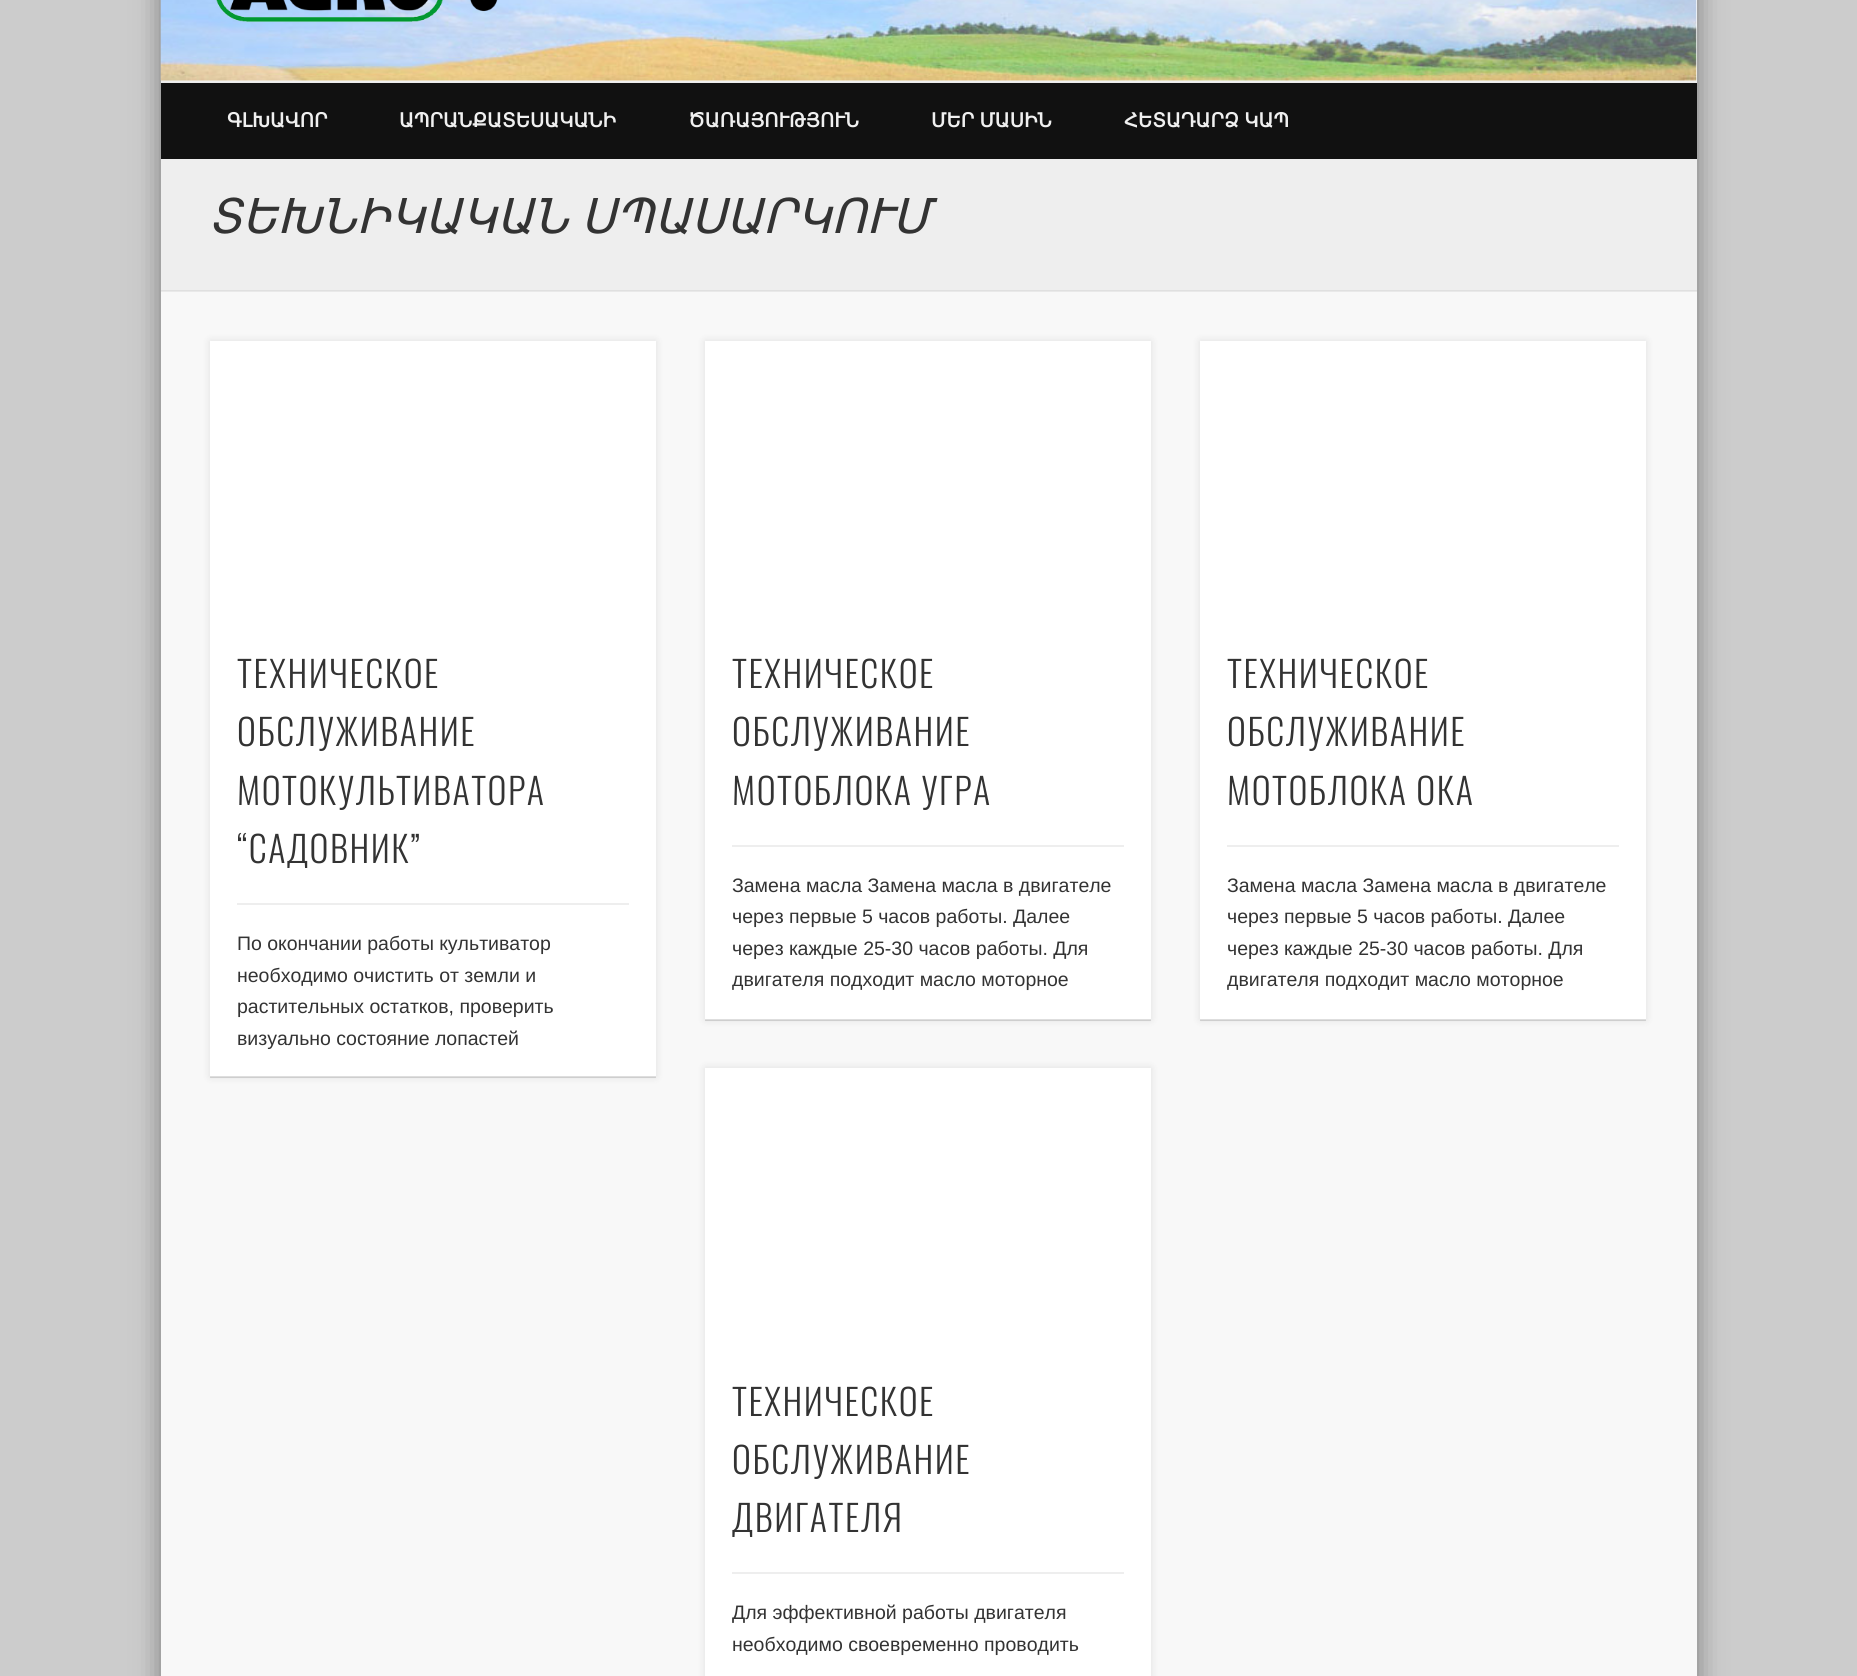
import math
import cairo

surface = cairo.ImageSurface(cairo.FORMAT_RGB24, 1857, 1676)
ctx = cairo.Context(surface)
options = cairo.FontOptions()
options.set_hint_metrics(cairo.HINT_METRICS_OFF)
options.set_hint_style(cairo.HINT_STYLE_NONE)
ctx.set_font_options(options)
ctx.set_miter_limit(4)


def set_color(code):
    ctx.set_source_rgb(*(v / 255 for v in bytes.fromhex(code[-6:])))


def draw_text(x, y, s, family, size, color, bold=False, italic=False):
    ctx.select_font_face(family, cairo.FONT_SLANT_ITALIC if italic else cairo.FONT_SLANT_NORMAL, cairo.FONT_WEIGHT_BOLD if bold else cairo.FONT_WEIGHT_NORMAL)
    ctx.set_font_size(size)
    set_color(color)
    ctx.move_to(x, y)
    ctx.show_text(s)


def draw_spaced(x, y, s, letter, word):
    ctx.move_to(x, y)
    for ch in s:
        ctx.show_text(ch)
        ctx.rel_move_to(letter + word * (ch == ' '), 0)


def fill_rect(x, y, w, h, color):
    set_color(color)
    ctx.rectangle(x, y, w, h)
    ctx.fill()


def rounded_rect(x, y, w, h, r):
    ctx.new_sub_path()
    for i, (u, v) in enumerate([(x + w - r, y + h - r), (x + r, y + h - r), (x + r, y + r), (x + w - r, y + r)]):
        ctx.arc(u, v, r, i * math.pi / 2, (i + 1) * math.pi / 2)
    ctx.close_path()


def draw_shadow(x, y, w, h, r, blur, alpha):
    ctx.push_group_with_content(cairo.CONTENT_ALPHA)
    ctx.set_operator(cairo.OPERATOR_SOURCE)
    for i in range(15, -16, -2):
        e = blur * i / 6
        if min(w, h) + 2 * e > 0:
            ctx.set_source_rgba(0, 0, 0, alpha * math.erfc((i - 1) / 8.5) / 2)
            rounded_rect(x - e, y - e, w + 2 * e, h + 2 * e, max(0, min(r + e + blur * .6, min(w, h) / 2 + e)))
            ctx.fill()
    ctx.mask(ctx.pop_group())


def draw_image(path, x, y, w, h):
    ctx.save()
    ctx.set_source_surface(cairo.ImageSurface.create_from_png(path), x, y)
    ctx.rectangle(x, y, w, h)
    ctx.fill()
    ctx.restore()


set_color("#cccccc")
ctx.paint()
set_color("#000000")
draw_shadow(161, -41, 1536, 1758, 0, 13.5, 0.4)
fill_rect(161, 0, 1536, 1676, "#f8f8f8")
draw_image("assets/img1.png", 160, 0, 1537, 81)
draw_image("assets/img2.png", 216, 0, 282, 22)
ctx.save()
ctx.rectangle(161, 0, 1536, 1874)
ctx.clip()
set_color("#000000")
draw_shadow(161, 83, 1536, 76, 0, 5, 0.1)
ctx.restore()
fill_rect(161, 83, 1536, 76, "#111111")
draw_text(227, 127, "ԳԼԽԱՎՈՐ", "DejaVu Sans", 19.5, "#f0f0f0", bold=True)
draw_text(399, 127, "ԱՊՐԱՆՔԱՏԵՍԱԿԱՆԻ", "DejaVu Sans", 19.5, "#f0f0f0", bold=True)
draw_text(688, 127, "ԾԱՌԱՅՈՒԹՅՈՒՆ", "DejaVu Sans", 19.5, "#f0f0f0", bold=True)
draw_spaced(931, 127, "ՄԵՐ ՄԱՍԻՆ", 0, -1)
draw_spaced(1124, 127, "ՀԵՏԱԴԱՐՁ ԿԱՊ", 0, -1)
fill_rect(161, 159, 1536, 132, "#eeeeee")
ctx.set_source_rgba(0, 0, 0, 0.06)
ctx.rectangle(161, 290, 1536, 2)
ctx.fill()
ctx.select_font_face("DejaVu Sans", cairo.FONT_SLANT_ITALIC)
ctx.set_font_size(48)
set_color("#333333")
draw_spaced(208, 233, "ՏԵԽՆԻԿԱԿԱՆ ՍՊԱՍԱՐԿՈՒՄ", 0, -3)
set_color("#000000")
draw_shadow(210, 341, 446, 736, 0, 4, 0.1)
fill_rect(210, 341, 446, 736, "#ffffff")
ctx.set_source_rgba(0, 0, 0, 0.13)
ctx.rectangle(210, 1076, 446, 2)
ctx.fill()
fill_rect(237, 903, 392, 2, "#eeeeee")
ctx.select_font_face("Oswald Light")
ctx.set_font_size(36)
set_color("#333333")
draw_spaced(237, 688, "ТЕХНИЧЕСКОЕ", 1.5, 0)
draw_spaced(237, 746, "ОБСЛУЖИВАНИЕ", 1.5, 0)
draw_spaced(237, 805, "МОТОКУЛЬТИВАТОРА", 1.5, 0)
draw_spaced(237, 863, "“САДОВНИК”", 1.5, 0)
draw_text(237, 950, "По окончании работы культиватор", "Liberation Sans", 19.5, "#333333")
draw_text(237, 982, "необходимо очистить от земли и", "Liberation Sans", 19.5, "#333333")
draw_text(237, 1013, "растительных остатков, проверить", "Liberation Sans", 19.5, "#333333")
draw_text(237, 1045, "визуально состояние лопастей", "Liberation Sans", 19.5, "#333333")
set_color("#000000")
draw_shadow(705, 341, 446, 679, 0, 4, 0.1)
fill_rect(705, 341, 446, 679, "#ffffff")
ctx.set_source_rgba(0, 0, 0, 0.13)
ctx.rectangle(705, 1019, 446, 2)
ctx.fill()
fill_rect(732, 845, 392, 2, "#eeeeee")
ctx.select_font_face("Oswald Light")
ctx.set_font_size(36)
set_color("#333333")
draw_spaced(732, 688, "ТЕХНИЧЕСКОЕ", 1.5, 0)
draw_spaced(732, 746, "ОБСЛУЖИВАНИЕ", 1.5, 0)
draw_spaced(732, 805, "МОТОБЛОКА УГРА", 1.5, 0)
draw_text(732, 892, "Замена масла Замена масла в двигателе", "Liberation Sans", 19.5, "#333333")
draw_text(732, 923, "через первые 5 часов работы. Далее", "Liberation Sans", 19.5, "#333333")
draw_text(732, 955, "через каждые 25-30 часов работы. Для", "Liberation Sans", 19.5, "#333333")
draw_text(732, 986, "двигателя подходит масло моторное", "Liberation Sans", 19.5, "#333333")
set_color("#000000")
draw_shadow(1200, 341, 446, 679, 0, 4, 0.1)
fill_rect(1200, 341, 446, 679, "#ffffff")
ctx.set_source_rgba(0, 0, 0, 0.13)
ctx.rectangle(1200, 1019, 446, 2)
ctx.fill()
fill_rect(1227, 845, 392, 2, "#eeeeee")
ctx.select_font_face("Oswald Light")
ctx.set_font_size(36)
set_color("#333333")
draw_spaced(1227, 688, "ТЕХНИЧЕСКОЕ", 1.5, 0)
draw_spaced(1227, 746, "ОБСЛУЖИВАНИЕ", 1.5, 0)
draw_spaced(1227, 805, "МОТОБЛОКА ОКА", 1.5, 0)
draw_text(1227, 892, "Замена масла Замена масла в двигателе", "Liberation Sans", 19.5, "#333333")
draw_text(1227, 923, "через первые 5 часов работы. Далее", "Liberation Sans", 19.5, "#333333")
draw_text(1227, 955, "через каждые 25-30 часов работы. Для", "Liberation Sans", 19.5, "#333333")
draw_text(1227, 986, "двигателя подходит масло моторное", "Liberation Sans", 19.5, "#333333")
set_color("#000000")
draw_shadow(705, 1068, 446, 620, 0, 4, 0.1)
fill_rect(705, 1068, 446, 608, "#ffffff")
fill_rect(732, 1572, 392, 2, "#eeeeee")
ctx.select_font_face("Oswald Light")
ctx.set_font_size(36)
set_color("#333333")
draw_spaced(732, 1416, "ТЕХНИЧЕСКОЕ", 1.5, 0)
draw_spaced(732, 1474, "ОБСЛУЖИВАНИЕ", 1.5, 0)
draw_spaced(732, 1532, "ДВИГАТЕЛЯ", 1.5, 0)
draw_text(732, 1619, "Для эффективной работы двигателя", "Liberation Sans", 19.5, "#333333")
draw_text(732, 1651, "необходимо своевременно проводить", "Liberation Sans", 19.5, "#333333")
surface.write_to_png("output.png")
